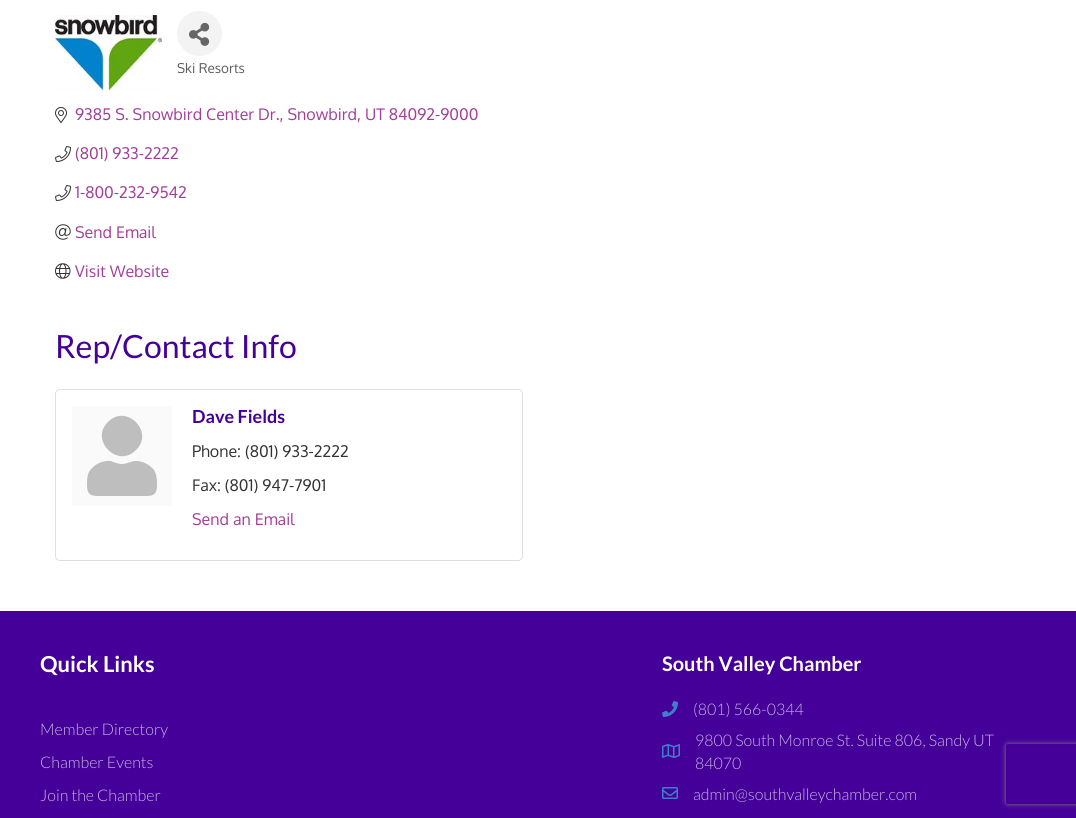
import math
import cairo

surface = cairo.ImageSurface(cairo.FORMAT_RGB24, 1076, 818)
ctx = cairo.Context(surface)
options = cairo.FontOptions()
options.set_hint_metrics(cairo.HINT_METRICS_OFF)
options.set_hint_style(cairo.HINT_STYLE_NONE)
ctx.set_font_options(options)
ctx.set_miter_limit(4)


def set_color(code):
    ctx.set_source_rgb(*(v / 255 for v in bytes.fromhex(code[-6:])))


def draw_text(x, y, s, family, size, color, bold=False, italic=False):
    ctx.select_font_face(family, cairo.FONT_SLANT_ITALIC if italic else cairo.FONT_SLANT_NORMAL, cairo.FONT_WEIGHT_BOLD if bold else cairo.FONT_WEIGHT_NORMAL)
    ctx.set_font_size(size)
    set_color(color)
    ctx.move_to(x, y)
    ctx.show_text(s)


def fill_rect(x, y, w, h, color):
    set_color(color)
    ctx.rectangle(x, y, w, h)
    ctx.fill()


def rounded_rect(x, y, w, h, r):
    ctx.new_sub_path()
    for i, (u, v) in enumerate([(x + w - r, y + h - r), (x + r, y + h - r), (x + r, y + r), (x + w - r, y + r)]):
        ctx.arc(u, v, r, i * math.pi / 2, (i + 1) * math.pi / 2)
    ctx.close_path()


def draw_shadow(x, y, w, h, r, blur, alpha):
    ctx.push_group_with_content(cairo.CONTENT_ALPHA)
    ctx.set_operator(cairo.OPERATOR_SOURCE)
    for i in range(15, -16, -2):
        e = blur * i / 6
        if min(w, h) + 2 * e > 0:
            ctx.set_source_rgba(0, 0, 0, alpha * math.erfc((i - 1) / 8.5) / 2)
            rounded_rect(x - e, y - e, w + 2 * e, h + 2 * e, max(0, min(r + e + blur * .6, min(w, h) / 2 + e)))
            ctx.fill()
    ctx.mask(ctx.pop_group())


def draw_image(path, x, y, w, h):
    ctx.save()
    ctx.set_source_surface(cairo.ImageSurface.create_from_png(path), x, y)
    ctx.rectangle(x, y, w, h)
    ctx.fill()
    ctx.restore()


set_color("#ffffff")
ctx.paint()
draw_image("assets/img1.png", 55, 15, 107, 75)
set_color("#f3f3f3")
ctx.arc(199.5, 33.5, 22.5, 0, 2 * math.pi)
ctx.fill()
draw_image("assets/img2.png", 189, 22, 21, 24)
draw_text(177, 73, "Ski Resorts", "Oxygen", 13.5, "#5c5c5c")
draw_image("assets/img3.png", 55, 107, 12, 16)
draw_text(75, 120, "9385 S. Snowbird Center Dr., Snowbird, UT 84092-9000", "Oxygen", 16, "#a13f97")
draw_image("assets/img4.png", 55, 146, 16, 16)
draw_text(75, 159, "(801) 933-2222", "Oxygen", 16, "#a13f97")
draw_image("assets/img4.png", 55, 185, 16, 16)
draw_text(75, 198, "1-800-232-9542", "Oxygen", 16, "#a13f97")
draw_image("assets/img5.png", 55, 224, 16, 16)
draw_text(75, 238, "Send Email", "Oxygen", 16, "#a13f97")
draw_image("assets/img6.png", 55, 263, 16, 16)
draw_text(75, 277, "Visit Website", "Oxygen", 16, "#a13f97")
draw_text(55, 358, "Rep/Contact Info", "Lato", 32, "#440099")
rounded_rect(55.5, 389.5, 467, 171, 4.5)
set_color("#dfdfdf")
ctx.set_line_width(1)
ctx.stroke()
fill_rect(72, 406, 100, 100, "#fafafa")
set_color("#bebebe")
ctx.new_path()
ctx.move_to(136, 450)
ctx.curve_to(118, 469, 89, 440, 108, 422)
ctx.curve_to(126, 403, 155, 432, 136, 450)
ctx.close_path()
ctx.move_to(136, 461)
ctx.curve_to(143, 461, 150, 465, 154, 470)
ctx.curve_to(157, 475, 157, 480, 157, 485)
ctx.curve_to(157, 497, 151, 496, 140, 496)
ctx.line_to(104, 496)
ctx.curve_to(93, 496, 87, 497, 87, 485)
ctx.curve_to(87, 481, 87, 476, 89, 472)
ctx.curve_to(93, 465, 102, 460, 111, 461)
ctx.line_to(113, 462)
ctx.curve_to(116, 463, 119, 464, 122, 464)
ctx.curve_to(127, 464, 131, 461, 136, 461)
ctx.close_path()
ctx.fill()
draw_text(192, 423, "Dave Fields", "Lato", 18, "#440099", bold=True)
draw_text(192, 457, "Phone: (801) 933-2222", "Oxygen", 16, "#333333")
draw_text(192, 491, "Fax: (801) 947-7901", "Oxygen", 16, "#333333")
draw_text(192, 525, "Send an Email", "Oxygen", 16, "#a13f97")
fill_rect(0, 611, 1076, 207, "#440099")
draw_text(40, 672, "Quick Links", "Lato", 22, "#ffffff", bold=True)
draw_text(40, 735, "Member Directory", "Lato Light", 16, "#c7b3e0")
draw_text(40, 768, "Chamber Events", "Lato Light", 16, "#c7b3e0")
draw_text(40, 801, "Join the Chamber", "Lato Light", 16, "#c7b3e0")
draw_text(662, 671, "South Valley Chamber", "Lato", 20, "#ffffff", bold=True)
draw_image("assets/img7.png", 662, 701, 16, 16)
draw_text(693, 715, "(801) 566-0344", "Lato Light", 16, "#c7b3e0")
draw_image("assets/img8.png", 662, 744, 18, 14)
draw_text(695, 746, "9800 South Monroe St. Suite 806, Sandy UT", "Lato Light", 16, "#c7b3e0")
draw_text(695, 769, "84070", "Lato Light", 16, "#c7b3e0")
draw_image("assets/img9.png", 662, 787, 16, 12)
draw_text(693, 800, "admin@southvalleychamber.com", "Lato Light", 16, "#c7b3e0")
ctx.save()
ctx.set_fill_rule(cairo.FILL_RULE_EVEN_ODD)
ctx.new_path()
ctx.move_to(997, 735)
ctx.line_to(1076, 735)
ctx.line_to(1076, 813)
ctx.line_to(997, 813)
ctx.close_path()
ctx.move_to(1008, 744)
ctx.line_to(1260, 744)
ctx.curve_to(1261, 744, 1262, 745, 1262, 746)
ctx.line_to(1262, 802)
ctx.curve_to(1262, 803, 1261, 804, 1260, 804)
ctx.line_to(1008, 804)
ctx.curve_to(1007, 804, 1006, 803, 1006, 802)
ctx.line_to(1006, 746)
ctx.curve_to(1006, 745, 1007, 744, 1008, 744)
ctx.close_path()
ctx.clip()
set_color("#808080")
draw_shadow(1006, 744, 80, 60, 2, 2.5, 1)
ctx.restore()
surface.write_to_png("output.png")
